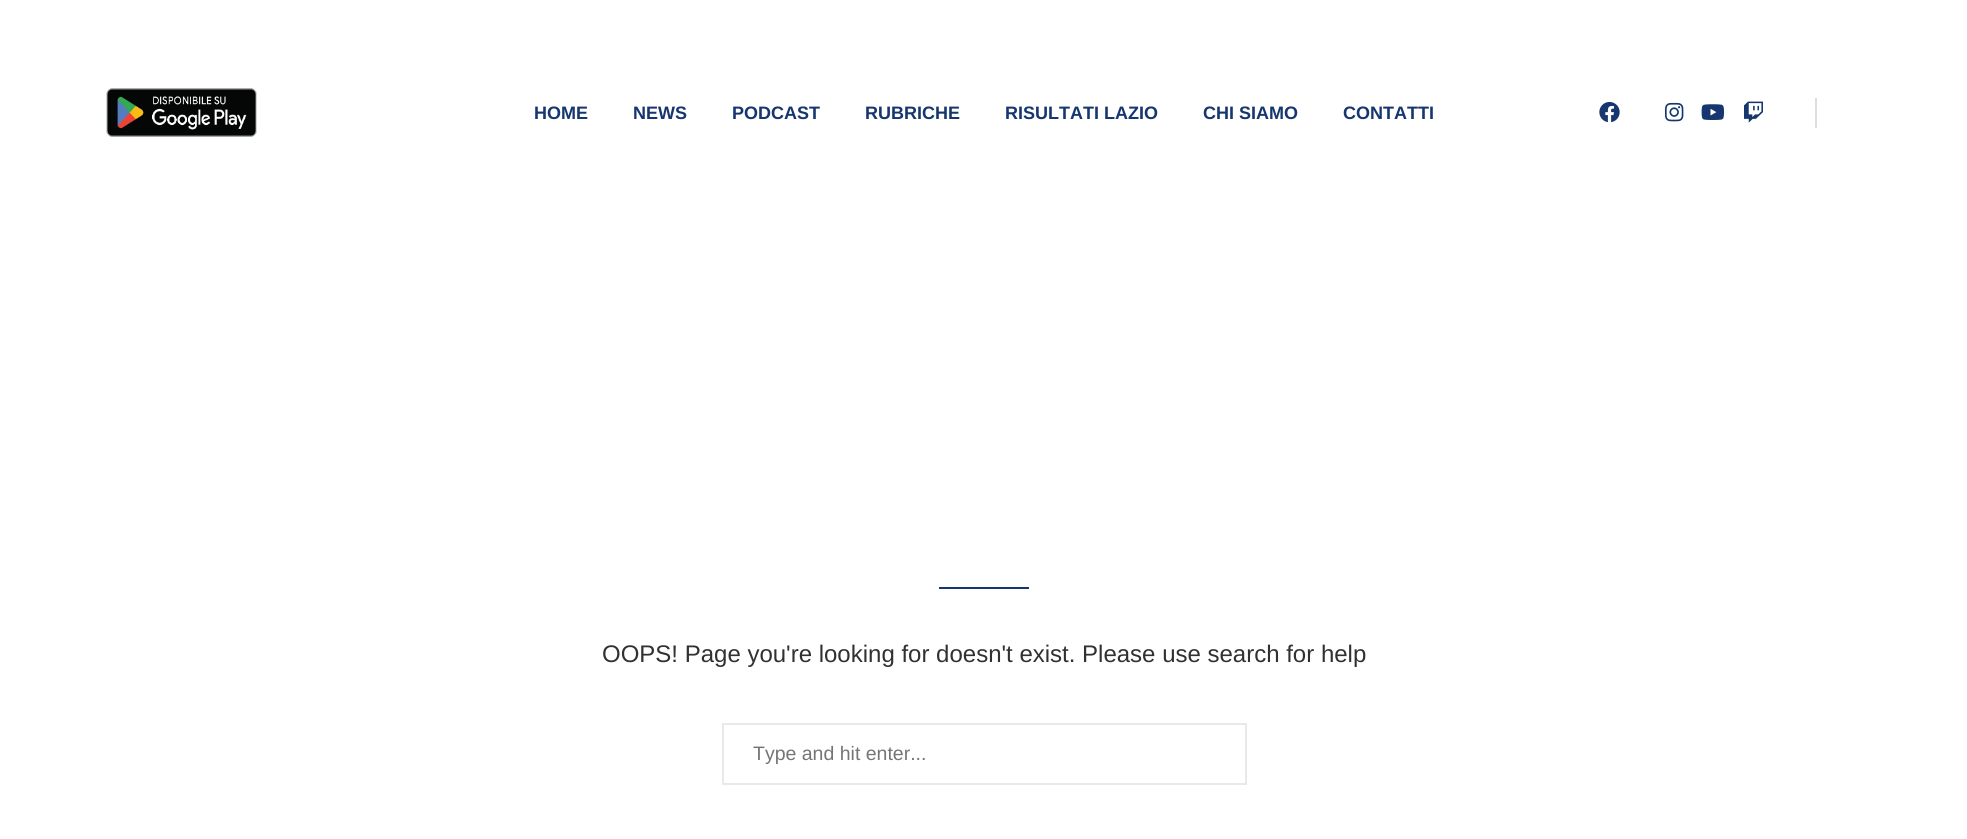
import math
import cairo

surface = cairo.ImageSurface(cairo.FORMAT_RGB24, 1967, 839)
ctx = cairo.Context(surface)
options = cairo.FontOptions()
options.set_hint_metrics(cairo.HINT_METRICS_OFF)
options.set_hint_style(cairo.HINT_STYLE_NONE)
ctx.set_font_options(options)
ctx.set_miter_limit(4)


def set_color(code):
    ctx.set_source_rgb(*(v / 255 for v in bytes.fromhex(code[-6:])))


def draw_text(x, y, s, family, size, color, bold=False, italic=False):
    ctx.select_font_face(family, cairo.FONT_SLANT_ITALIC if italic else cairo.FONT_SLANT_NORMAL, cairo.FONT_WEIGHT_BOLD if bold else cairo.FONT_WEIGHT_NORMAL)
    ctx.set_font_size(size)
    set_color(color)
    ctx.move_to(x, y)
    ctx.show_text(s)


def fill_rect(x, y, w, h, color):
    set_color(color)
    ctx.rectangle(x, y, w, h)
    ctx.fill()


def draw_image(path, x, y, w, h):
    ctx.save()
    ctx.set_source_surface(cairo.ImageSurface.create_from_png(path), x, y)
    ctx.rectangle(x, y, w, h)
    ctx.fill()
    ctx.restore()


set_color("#ffffff")
ctx.paint()
draw_image("assets/img1.png", 106, 88, 151, 49)
draw_text(534, 119, "HOME", "Liberation Sans", 18, "#15366f", bold=True)
draw_text(633, 119, "NEWS", "Liberation Sans", 18, "#15366f", bold=True)
draw_text(732, 119, "PODCAST", "Liberation Sans", 18, "#15366f", bold=True)
draw_text(865, 119, "RUBRICHE", "Liberation Sans", 18, "#15366f", bold=True)
draw_text(1005, 119, "RISULTATI LAZIO", "Liberation Sans", 18, "#15366f", bold=True)
draw_text(1203, 119, "CHI SIAMO", "Liberation Sans", 18, "#15366f", bold=True)
draw_text(1343, 119, "CONTATTI", "Liberation Sans", 18, "#15366f", bold=True)
draw_image("assets/img2.png", 1599, 101, 21, 22)
draw_image("assets/img3.png", 1665, 102, 19, 20)
draw_image("assets/img4.png", 1701, 104, 23, 16)
draw_image("assets/img5.png", 1744, 101, 19, 22)
fill_rect(1815, 98, 2, 30, "#dedede")
fill_rect(939, 587, 90, 2, "#15366f")
draw_text(602, 662, "OOPS! Page you're looking for doesn't exist. Please use search for help", "Liberation Sans", 24, "#313131")
ctx.rectangle(723, 724, 523, 60)
set_color("#e9e9e9")
ctx.stroke()
draw_text(753, 760, "Type and hit enter...", "Liberation Sans", 19.5, "#757575")
surface.write_to_png("output.png")
